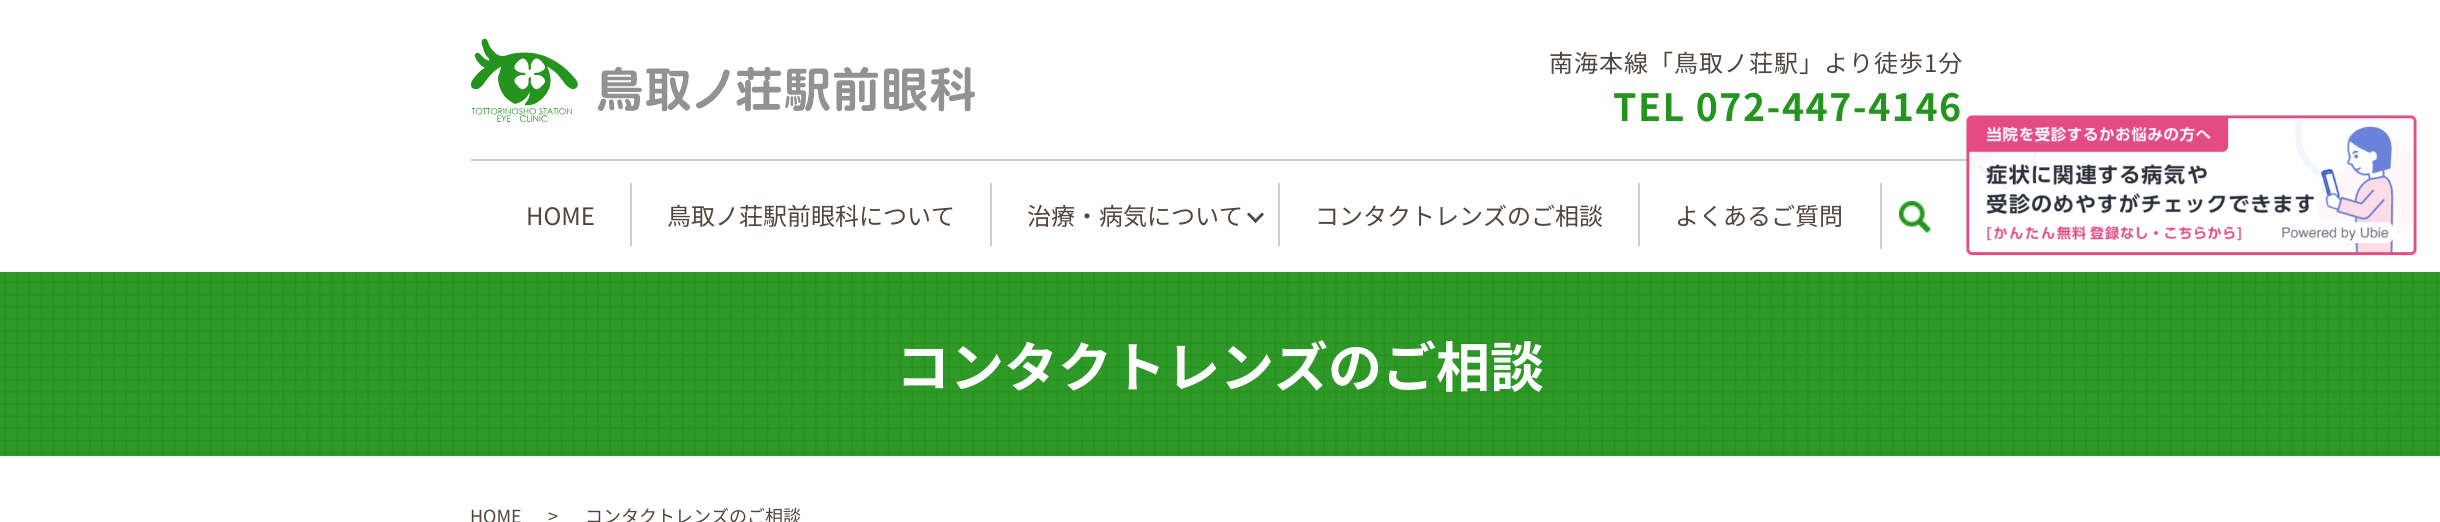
import math
import cairo

surface = cairo.ImageSurface(cairo.FORMAT_RGB24, 2440, 522)
ctx = cairo.Context(surface)
options = cairo.FontOptions()
options.set_hint_metrics(cairo.HINT_METRICS_OFF)
options.set_hint_style(cairo.HINT_STYLE_NONE)
ctx.set_font_options(options)
ctx.set_miter_limit(4)


def set_color(code):
    ctx.set_source_rgb(*(v / 255 for v in bytes.fromhex(code[-6:])))


def draw_text(x, y, s, family, size, color, bold=False, italic=False):
    ctx.select_font_face(family, cairo.FONT_SLANT_ITALIC if italic else cairo.FONT_SLANT_NORMAL, cairo.FONT_WEIGHT_BOLD if bold else cairo.FONT_WEIGHT_NORMAL)
    ctx.set_font_size(size)
    set_color(color)
    ctx.move_to(x, y)
    ctx.show_text(s)


def draw_spaced(x, y, s, letter, word):
    ctx.move_to(x, y)
    for ch in s:
        ctx.show_text(ch)
        ctx.rel_move_to(letter + word * (ch == ' '), 0)


def fill_rect(x, y, w, h, color):
    set_color(color)
    ctx.rectangle(x, y, w, h)
    ctx.fill()


def draw_image(path, x, y, w, h):
    ctx.save()
    ctx.set_source_surface(cairo.ImageSurface.create_from_png(path), x, y)
    ctx.rectangle(x, y, w, h)
    ctx.fill()
    ctx.restore()


set_color("#ffffff")
ctx.paint()
draw_image("assets/img1.png", 471, 38, 504, 84)
ctx.select_font_face("Noto Sans JP")
ctx.set_font_size(24)
set_color("#4f463f")
draw_spaced(1549, 72, "南海本線「鳥取ノ荘駅」より徒歩1分", 1, 0)
ctx.select_font_face("Noto Sans JP", cairo.FONT_SLANT_NORMAL, cairo.FONT_WEIGHT_BOLD)
ctx.set_font_size(37.5)
set_color("#25941e")
draw_spaced(1613, 121, "TEL 072-447-4146", 1.5, 0)
fill_rect(471, 159, 1500, 2, "#cecece")
draw_text(526, 225, "HOME", "Noto Sans JP", 24, "#4f463f")
fill_rect(630, 183, 2, 63, "#cecece")
draw_text(667, 225, "鳥取ノ荘駅前眼科について", "Noto Sans JP", 24, "#4f463f")
fill_rect(990, 183, 2, 63, "#cecece")
draw_text(1027, 225, "治療・病気について", "Noto Sans JP", 24, "#4f463f")
ctx.new_path()
ctx.move_to(1264, 214.5)
ctx.line_to(1255.5, 223)
ctx.line_to(1253.5, 221)
ctx.line_to(1262, 212.5)
ctx.close_path()
ctx.fill()
ctx.new_path()
ctx.move_to(1257.5, 221)
ctx.line_to(1255.5, 223)
ctx.line_to(1247, 214.5)
ctx.line_to(1249, 212.5)
ctx.close_path()
ctx.fill()
fill_rect(1278, 183, 2, 63, "#cecece")
draw_text(1315, 225, "コンタクトレンズのご相談", "Noto Sans JP", 24, "#4f463f")
fill_rect(1638, 183, 2, 63, "#cecece")
draw_text(1675, 225, "よくあるご質問", "Noto Sans JP", 24, "#4f463f")
draw_image("assets/img2.png", 1899, 201, 32, 32)
fill_rect(1880, 183, 2, 66, "#cecece")
draw_image("assets/img3.png", 1966, 115, 451, 141)
draw_image("assets/img4.png", 2281, 222, 114, 21)
draw_image("assets/img5.png", 0, 272, 2440, 184)
draw_text(896, 387, "コンタクトレンズのご相談", "Noto Sans JP", 54, "#ffffff", bold=True)
draw_text(470, 523, "HOME", "Noto Sans JP", 18, "#4f463f")
draw_text(548, 523, ">", "Noto Sans JP", 18, "#4f463f")
draw_text(585, 523, "コンタクトレンズのご相談", "Noto Sans JP", 18, "#4f463f")
surface.write_to_png("output.png")
